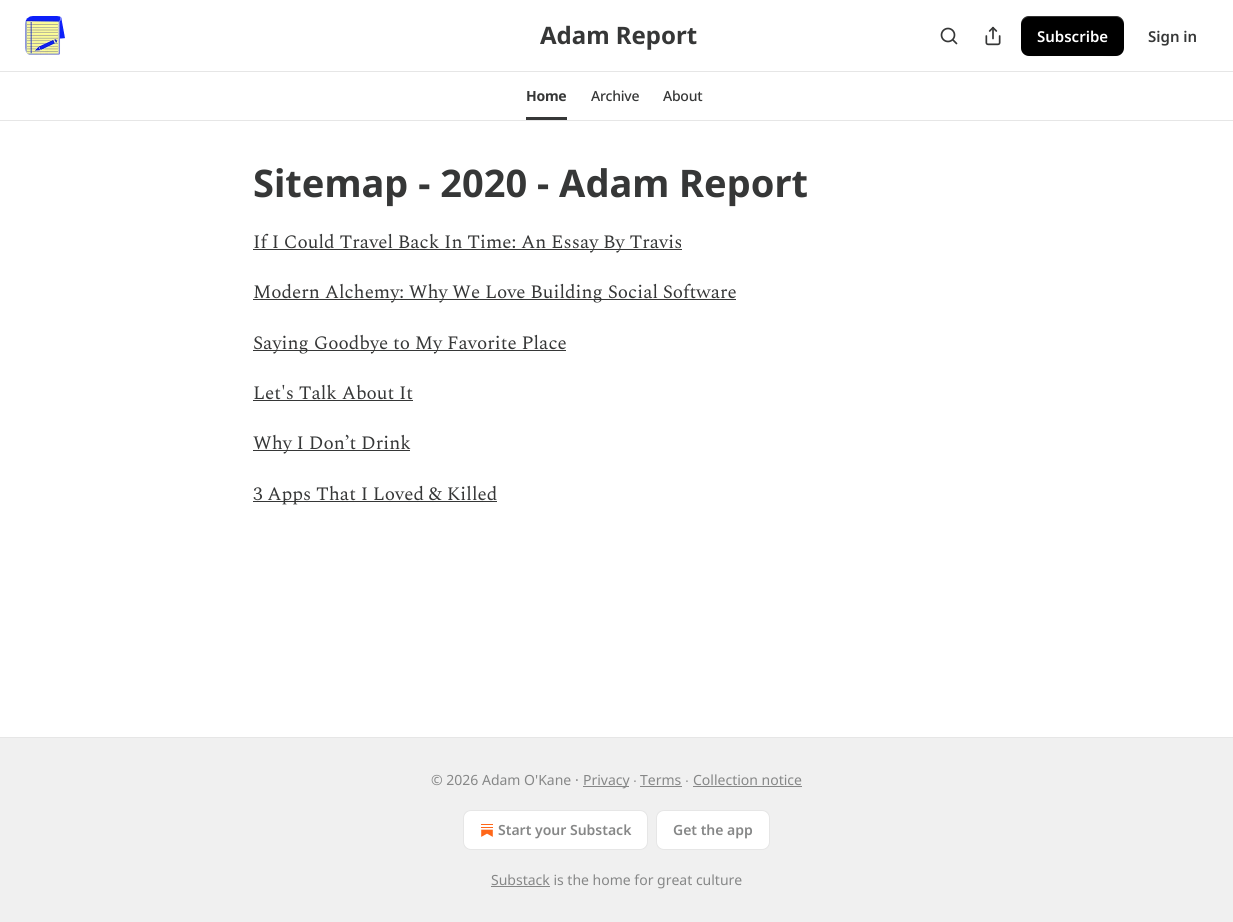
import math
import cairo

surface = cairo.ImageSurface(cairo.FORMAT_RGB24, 1233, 922)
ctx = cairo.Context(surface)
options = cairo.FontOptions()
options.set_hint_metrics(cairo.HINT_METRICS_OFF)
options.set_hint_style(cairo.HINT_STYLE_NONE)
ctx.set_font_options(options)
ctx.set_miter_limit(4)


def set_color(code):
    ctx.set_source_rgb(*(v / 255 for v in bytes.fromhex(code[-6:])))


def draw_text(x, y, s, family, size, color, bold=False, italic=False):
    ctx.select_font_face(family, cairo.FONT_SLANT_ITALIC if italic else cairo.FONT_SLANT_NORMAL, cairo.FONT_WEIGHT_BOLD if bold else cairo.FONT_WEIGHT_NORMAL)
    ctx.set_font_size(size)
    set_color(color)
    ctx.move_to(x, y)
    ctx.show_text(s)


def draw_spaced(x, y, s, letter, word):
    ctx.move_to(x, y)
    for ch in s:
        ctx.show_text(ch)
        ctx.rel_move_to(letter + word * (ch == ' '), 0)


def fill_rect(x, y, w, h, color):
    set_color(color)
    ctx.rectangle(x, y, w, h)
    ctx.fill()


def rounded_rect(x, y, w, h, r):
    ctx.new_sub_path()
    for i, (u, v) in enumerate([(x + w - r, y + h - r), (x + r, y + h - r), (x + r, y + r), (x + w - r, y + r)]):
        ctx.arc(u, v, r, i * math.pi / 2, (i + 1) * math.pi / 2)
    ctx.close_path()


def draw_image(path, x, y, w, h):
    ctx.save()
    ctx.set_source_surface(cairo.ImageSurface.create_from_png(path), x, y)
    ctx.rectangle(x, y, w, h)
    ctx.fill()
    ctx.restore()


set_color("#ffffff")
ctx.paint()
draw_image("assets/img1.png", 25, 16, 40, 39)
draw_text(540, 44, "Adam Report", "Noto Sans", 24, "#363737", bold=True)
ctx.new_path()
ctx.arc(948, 35, 6.5, 0, 2 * math.pi)
ctx.set_line_width(1.7)
ctx.stroke()
ctx.new_path()
ctx.move_to(956.5, 43.5)
ctx.line_to(953, 40)
ctx.set_line_cap(cairo.LINE_CAP_ROUND)
ctx.set_line_join(cairo.LINE_JOIN_ROUND)
ctx.stroke()
draw_image("assets/img2.png", 985, 26, 16, 20)
set_color("#000000")
rounded_rect(1021, 16, 103, 40, 8)
ctx.fill()
ctx.set_source_rgba(0, 0, 0, 0.1)
ctx.new_path()
ctx.move_to(1021, 47)
ctx.curve_to(1021, 59, 1035, 56, 1044, 56)
ctx.line_to(1102, 56)
ctx.curve_to(1110, 56, 1124, 59, 1124, 47)
ctx.curve_to(1124, 51, 1120, 55, 1116, 55)
ctx.line_to(1029, 55)
ctx.curve_to(1025, 55, 1021, 51, 1021, 47)
ctx.close_path()
ctx.fill()
ctx.set_source_rgba(1, 1, 1, 0.2)
ctx.new_path()
ctx.move_to(1029, 17)
ctx.line_to(1116, 17)
ctx.curve_to(1120, 17, 1124, 21, 1124, 25)
ctx.curve_to(1124, 13, 1110, 16, 1102, 16)
ctx.line_to(1044, 16)
ctx.curve_to(1035, 16, 1021, 13, 1021, 25)
ctx.curve_to(1021, 21, 1025, 17, 1029, 17)
ctx.close_path()
ctx.fill()
draw_text(1037, 42, "Subscribe", "Noto Sans SemiBold", 15, "#ffffff")
draw_text(1148, 42, "Sign in", "Noto Sans SemiBold", 15, "#363737")
fill_rect(0, 71, 1233, 1, "#e6e6e6")
fill_rect(0, 120, 1233, 1, "#e6e6e6")
fill_rect(526, 117, 41, 3, "#363737")
ctx.select_font_face("Noto Sans", cairo.FONT_SLANT_NORMAL, cairo.FONT_WEIGHT_BOLD)
ctx.set_font_size(14)
draw_spaced(526, 101, "Home", -0.25, 0)
ctx.select_font_face("Noto Sans Medium")
draw_spaced(591, 101, "Archive", -0.25, 0)
draw_spaced(663, 101, "About", -0.25, 0)
draw_text(253, 197, "Sitemap - 2020 - Adam Report", "Noto Sans", 38, "#363737", bold=True)
fill_rect(253, 249, 429, 1, "#363737")
draw_text(253, 248, "If I Could Travel Back In Time: An Essay By Travis", "Spectral", 19, "#363737")
fill_rect(253, 299, 483, 1, "#363737")
draw_text(253, 298, "Modern Alchemy: Why We Love Building Social Software", "Spectral", 19, "#363737")
fill_rect(253, 350, 313, 1, "#363737")
draw_text(253, 349, "Saying Goodbye to My Favorite Place", "Spectral", 19, "#363737")
draw_text(253, 399, "Let's Talk About It", "Spectral", 19, "#363737")
fill_rect(253, 400, 160, 1, "#363737")
fill_rect(253, 450, 157, 1, "#363737")
draw_text(253, 449, "Why I Don’t Drink", "Spectral", 19, "#363737")
fill_rect(253, 501, 244, 1, "#363737")
draw_text(253, 500, "3 Apps That I Loved & Killed", "Spectral", 19, "#363737")
fill_rect(0, 738, 1233, 184, "#f0f0f0")
fill_rect(0, 737, 1233, 1, "#e6e6e6")
draw_text(431, 785, "© 2026 Adam O'Kane ·", "Noto Sans", 14, "#868787")
fill_rect(583, 786, 46, 1, "#868787")
draw_text(583, 785, "Privacy", "Noto Sans", 14, "#868787")
draw_text(633, 785, "∙", "Liberation Sans", 14, "#868787")
draw_text(640, 785, "Terms", "Noto Sans", 14, "#868787")
fill_rect(640, 786, 42, 1, "#868787")
draw_text(685, 785, "∙", "Liberation Sans", 14, "#868787")
draw_text(693, 785, "Collection notice", "Noto Sans", 14, "#868787")
fill_rect(693, 786, 109, 1, "#868787")
set_color("#ffffff")
rounded_rect(463.5, 810.5, 184, 39, 7.5)
ctx.fill_preserve()
set_color("#e6e6e6")
ctx.set_line_width(1)
ctx.set_line_cap(cairo.LINE_CAP_BUTT)
ctx.set_line_join(cairo.LINE_JOIN_MITER)
ctx.stroke()
draw_image("assets/img3.png", 481, 824, 12, 13)
draw_text(498, 835, "Start your Substack", "Noto Sans SemiBold", 14, "#868787")
set_color("#ffffff")
rounded_rect(656.5, 810.5, 113, 39, 7.5)
ctx.fill_preserve()
set_color("#e6e6e6")
ctx.stroke()
draw_text(673, 835, "Get the app", "Noto Sans SemiBold", 14, "#868787")
fill_rect(491, 886, 59, 1, "#868787")
draw_text(491, 885, "Substack is the home for great culture", "Noto Sans", 14, "#868787")
surface.write_to_png("output.png")
